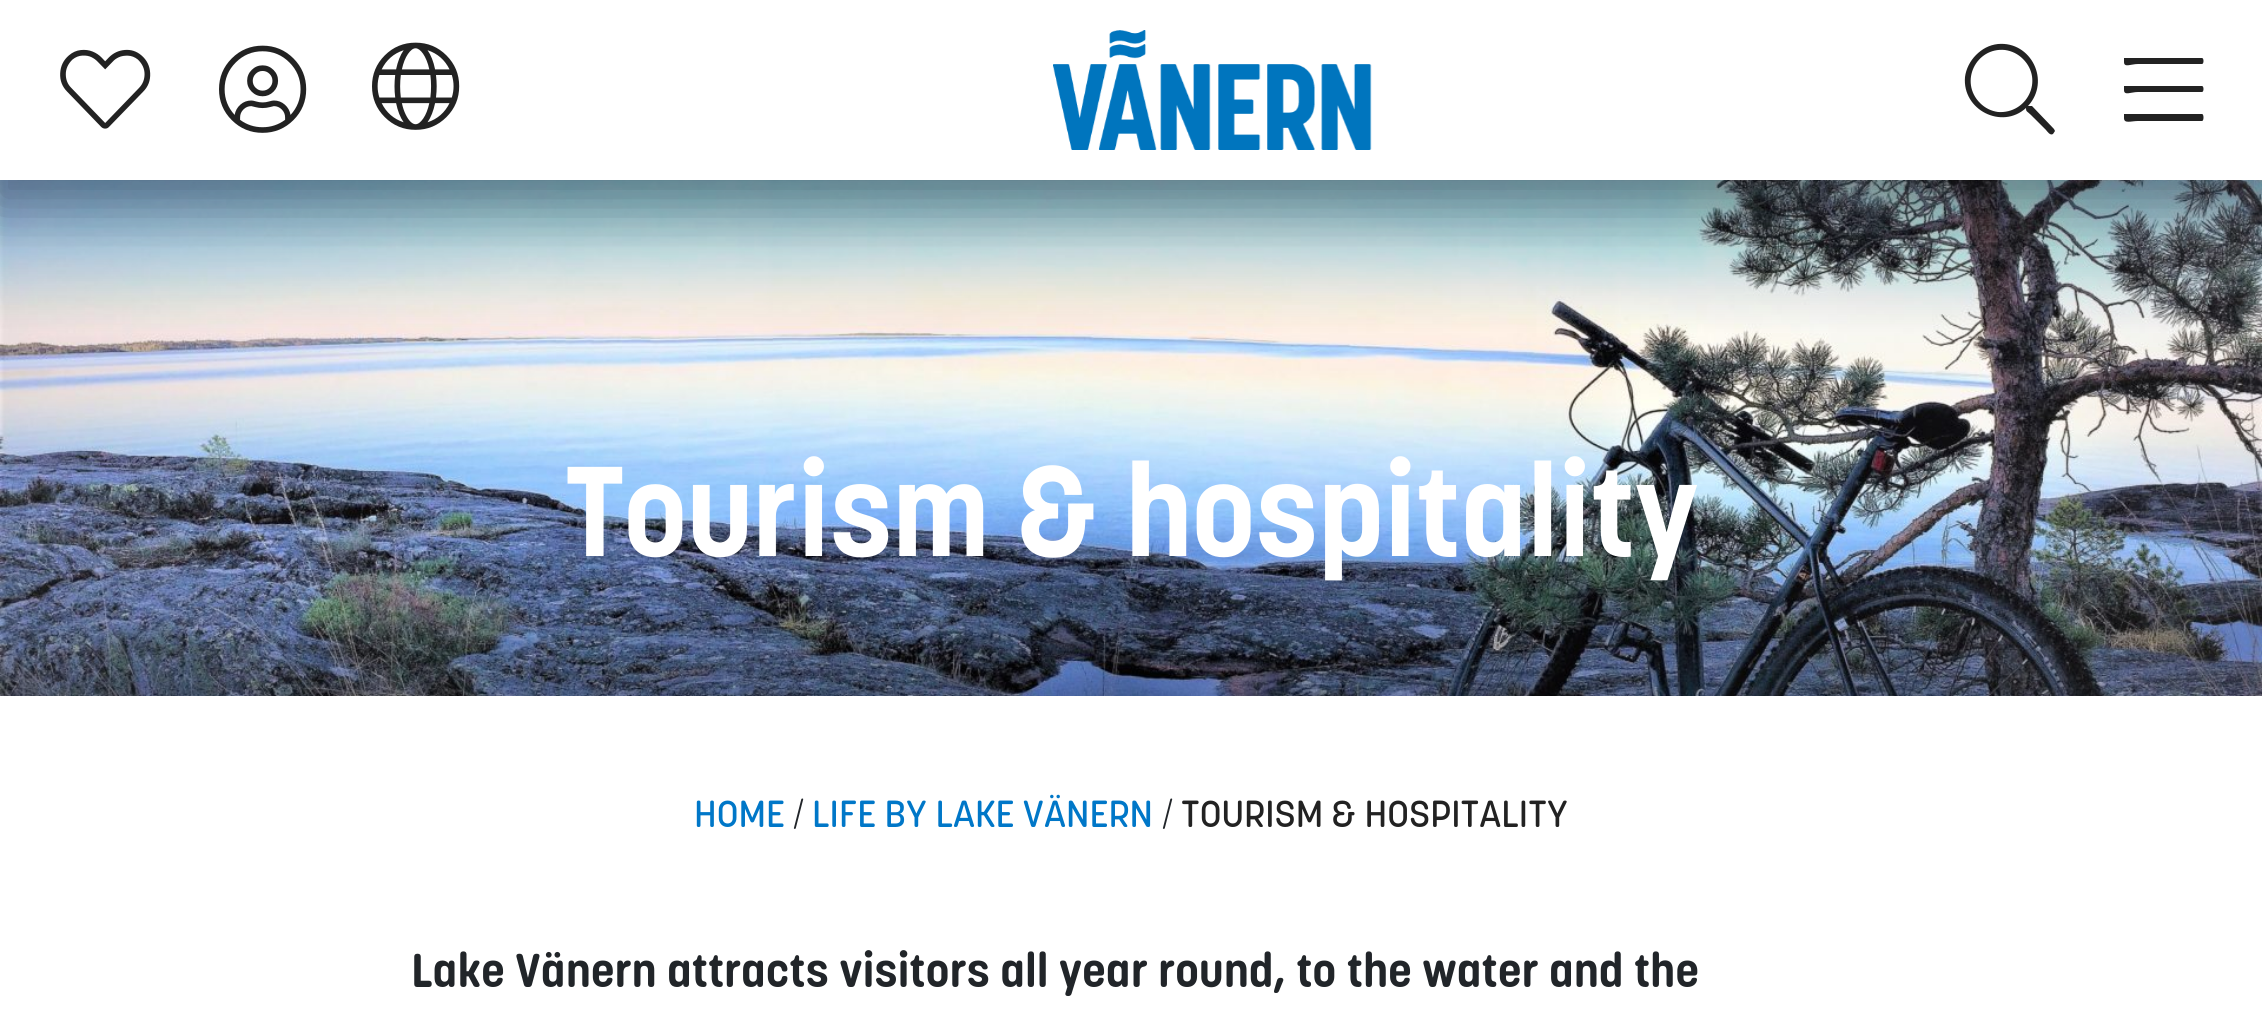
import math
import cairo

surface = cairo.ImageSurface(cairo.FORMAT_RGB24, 2262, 1029)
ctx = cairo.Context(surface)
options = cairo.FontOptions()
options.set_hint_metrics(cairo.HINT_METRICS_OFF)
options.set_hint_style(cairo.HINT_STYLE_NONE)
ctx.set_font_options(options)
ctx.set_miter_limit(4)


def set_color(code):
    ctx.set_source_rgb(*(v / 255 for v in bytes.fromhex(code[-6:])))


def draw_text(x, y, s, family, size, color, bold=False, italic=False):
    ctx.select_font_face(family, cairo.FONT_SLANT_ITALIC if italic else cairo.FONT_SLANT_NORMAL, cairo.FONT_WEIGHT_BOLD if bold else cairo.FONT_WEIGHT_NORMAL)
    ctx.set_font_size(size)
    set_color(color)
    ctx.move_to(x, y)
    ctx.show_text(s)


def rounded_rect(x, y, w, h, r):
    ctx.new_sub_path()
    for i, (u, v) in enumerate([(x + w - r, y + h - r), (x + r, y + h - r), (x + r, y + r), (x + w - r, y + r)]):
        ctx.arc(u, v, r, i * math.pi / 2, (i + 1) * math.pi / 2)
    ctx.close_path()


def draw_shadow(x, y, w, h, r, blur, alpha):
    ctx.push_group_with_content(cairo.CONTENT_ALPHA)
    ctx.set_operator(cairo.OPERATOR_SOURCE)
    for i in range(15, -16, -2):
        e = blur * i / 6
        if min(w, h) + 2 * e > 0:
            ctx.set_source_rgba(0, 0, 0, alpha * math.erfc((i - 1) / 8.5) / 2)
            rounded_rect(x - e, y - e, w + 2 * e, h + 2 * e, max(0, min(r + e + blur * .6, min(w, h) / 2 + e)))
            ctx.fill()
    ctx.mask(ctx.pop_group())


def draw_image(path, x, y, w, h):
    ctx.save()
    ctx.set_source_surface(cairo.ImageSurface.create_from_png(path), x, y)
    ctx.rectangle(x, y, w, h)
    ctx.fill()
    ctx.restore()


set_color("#ffffff")
ctx.paint()
draw_image("assets/img5.png", 0, 180, 2262, 516)
ctx.save()
ctx.rectangle(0, 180, 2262, 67)
ctx.clip()
set_color("#151515")
draw_shadow(-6, 12, 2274, 192, 0, 28, 0.32)
ctx.restore()
draw_image("assets/img1.png", 60, 49, 91, 80)
draw_image("assets/img2.png", 219, 45, 88, 88)
draw_image("assets/img3.png", 372, 42, 88, 88)
draw_image("assets/img4.png", 1053, 30, 319, 120)
set_color("#222222")
ctx.new_path()
ctx.move_to(2054, 129)
ctx.line_to(2055, 131)
ctx.line_to(2053, 134)
ctx.curve_to(2050, 136, 2047, 131, 2046, 130)
ctx.line_to(2031, 115)
ctx.curve_to(2027, 111, 2026, 112, 2026, 108)
ctx.curve_to(2002, 130, 1962, 110, 1965, 77)
ctx.curve_to(1966, 69, 1970, 61, 1976, 55)
ctx.curve_to(1982, 49, 1989, 45, 1998, 44)
ctx.curve_to(2031, 41, 2051, 81, 2028, 106)
ctx.line_to(2030, 106)
ctx.line_to(2032, 106)
ctx.close_path()
ctx.move_to(1980, 103)
ctx.curve_to(1985, 108, 1991, 111, 1998, 112)
ctx.curve_to(2027, 114, 2044, 80, 2023, 59)
ctx.curve_to(2018, 54, 2012, 51, 2005, 50)
ctx.curve_to(1976, 47, 1959, 82, 1980, 103)
ctx.close_path()
ctx.fill()
ctx.new_path()
ctx.move_to(2202, 64)
ctx.line_to(2138, 64)
ctx.curve_to(2131, 64, 2124, 68, 2124, 62)
ctx.line_to(2124, 58)
ctx.line_to(2202, 58)
ctx.curve_to(2204, 58, 2204, 64, 2202, 64)
ctx.close_path()
ctx.move_to(2202, 92)
ctx.line_to(2138, 92)
ctx.curve_to(2131, 92, 2124, 96, 2124, 90)
ctx.line_to(2124, 86)
ctx.line_to(2202, 86)
ctx.curve_to(2204, 86, 2204, 92, 2202, 92)
ctx.close_path()
ctx.move_to(2202, 121)
ctx.line_to(2138, 121)
ctx.curve_to(2131, 121, 2124, 124, 2124, 118)
ctx.line_to(2124, 114)
ctx.line_to(2202, 114)
ctx.curve_to(2204, 114, 2204, 121, 2202, 121)
ctx.close_path()
ctx.fill()
draw_text(565, 556, "Tourism & hospitality", "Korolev", 126.5, "#ffffff", bold=True)
draw_text(694, 827, "HOME", "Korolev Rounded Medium", 37.5, "#0077c8")
draw_text(793, 827, "/", "Korolev Rounded Light", 37.5, "#212529")
draw_text(812, 827, "LIFE BY LAKE VÄNERN", "Korolev Rounded Medium", 37.5, "#0077c8")
draw_text(1162, 827, "/", "Korolev Rounded Light", 37.5, "#212529")
draw_text(1181, 827, "TOURISM & HOSPITALITY", "Korolev Rounded Medium", 37.5, "#222222")
draw_text(411, 987, "Lake Vänern attracts visitors all year round, to the water and the", "Korolev Rounded", 47.1, "#212529", bold=True)
surface.write_to_png("output.png")
